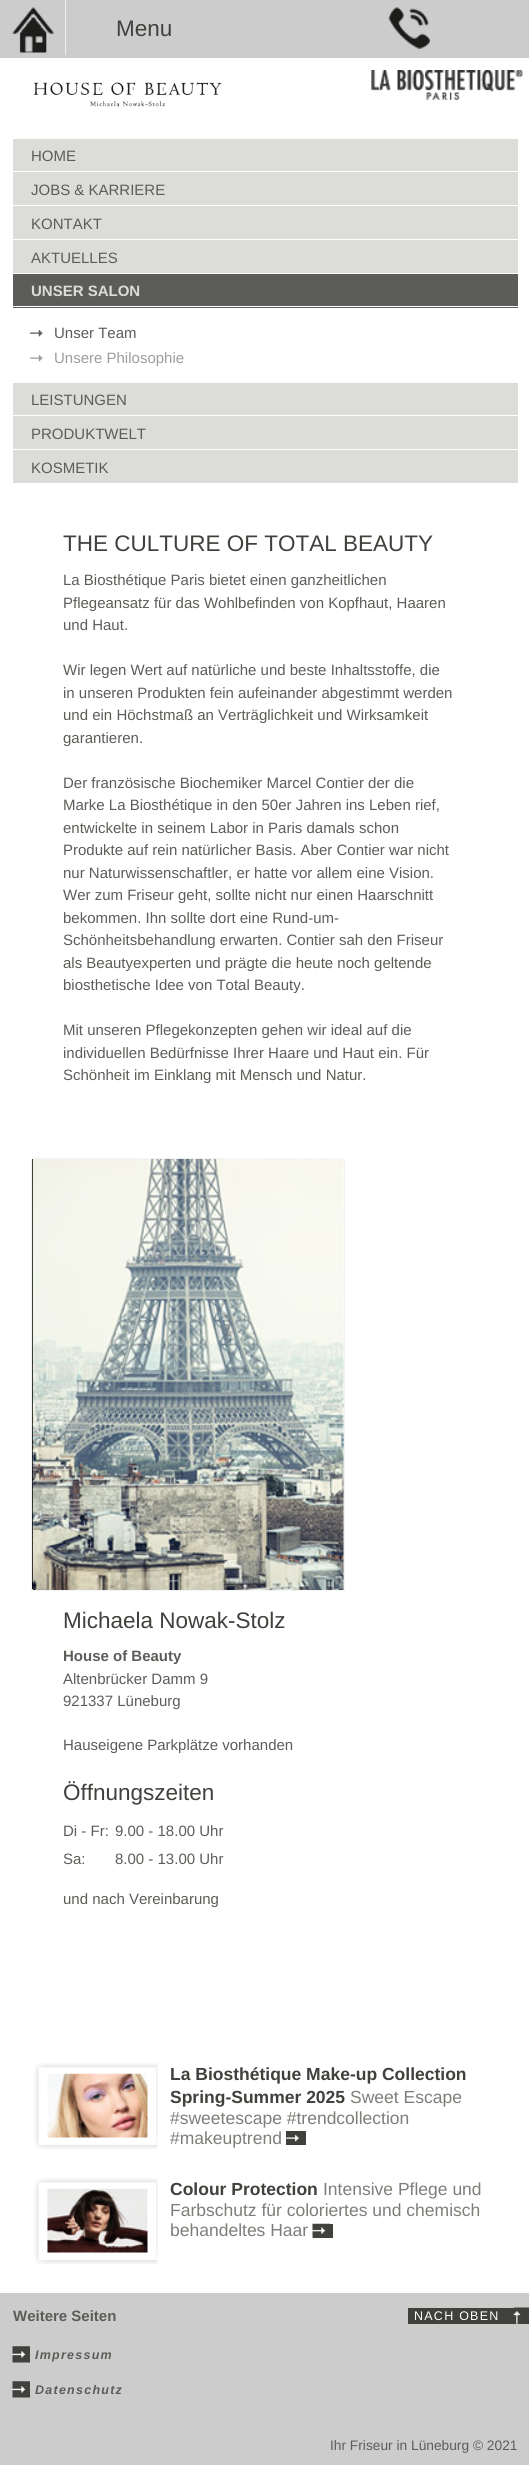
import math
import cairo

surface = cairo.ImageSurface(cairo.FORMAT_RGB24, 529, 2465)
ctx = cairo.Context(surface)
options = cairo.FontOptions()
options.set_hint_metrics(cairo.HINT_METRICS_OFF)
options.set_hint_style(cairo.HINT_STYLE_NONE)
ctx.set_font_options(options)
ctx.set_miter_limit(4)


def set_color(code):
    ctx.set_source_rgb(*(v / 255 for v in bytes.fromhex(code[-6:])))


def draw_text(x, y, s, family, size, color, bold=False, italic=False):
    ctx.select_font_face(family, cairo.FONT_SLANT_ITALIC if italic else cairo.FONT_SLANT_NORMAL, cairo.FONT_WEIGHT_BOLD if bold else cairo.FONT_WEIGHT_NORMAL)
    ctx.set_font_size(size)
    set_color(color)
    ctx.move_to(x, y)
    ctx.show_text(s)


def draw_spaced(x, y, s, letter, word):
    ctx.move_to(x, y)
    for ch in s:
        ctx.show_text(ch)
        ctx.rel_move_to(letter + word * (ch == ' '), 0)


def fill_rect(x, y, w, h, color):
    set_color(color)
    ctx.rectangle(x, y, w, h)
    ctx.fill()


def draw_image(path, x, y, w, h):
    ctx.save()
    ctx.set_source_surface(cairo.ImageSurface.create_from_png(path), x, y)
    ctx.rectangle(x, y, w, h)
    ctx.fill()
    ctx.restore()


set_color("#ffffff")
ctx.paint()
fill_rect(0, 0, 529, 58, "#cccccc")
draw_image("assets/img1.png", 12, 7, 42, 46)
fill_rect(65, 0, 1, 55, "#efefed")
draw_text(116, 36, "Menu", "Liberation Sans", 22.5, "#40403d")
draw_image("assets/img2.png", 388, 7, 42, 42)
draw_image("assets/img3.png", 33, 82, 189, 25)
draw_image("assets/img4.png", 371, 70, 152, 30)
fill_rect(13, 139, 505, 66, "#dcddd8")
fill_rect(13, 171, 505, 1, "#ffffff")
draw_text(31, 161, "HOME", "Liberation Sans", 15, "#5c5c58")
draw_text(31, 195, "JOBS & KARRIERE", "Liberation Sans", 15, "#5c5c58")
fill_rect(13, 206, 505, 33, "#dcddd8")
draw_text(31, 229, "KONTAKT", "Liberation Sans", 15, "#5c5c58")
fill_rect(13, 240, 505, 33, "#dcddd8")
draw_text(31, 263, "AKTUELLES", "Liberation Sans", 15, "#5c5c58")
fill_rect(13, 274, 505, 34, "#5c5c58")
fill_rect(13, 306, 505, 1, "#ffffff")
draw_text(31, 296, "UNSER SALON", "Liberation Sans", 15, "#dcddd8", bold=True)
draw_image("assets/img5.png", 30, 329, 13, 8)
draw_text(54, 338, "Unser Team", "Liberation Sans", 15, "#5c5c58")
draw_image("assets/img6.png", 30, 354, 13, 8)
draw_text(54, 363, "Unsere Philosophie", "Liberation Sans", 15, "#9d9d9b")
fill_rect(13, 383, 505, 32, "#dcddd8")
draw_text(31, 405, "LEISTUNGEN", "Liberation Sans", 15, "#5c5c58")
fill_rect(13, 416, 505, 33, "#dcddd8")
draw_text(31, 439, "PRODUKTWELT", "Liberation Sans", 15, "#5c5c58")
fill_rect(13, 450, 505, 33, "#dcddd8")
draw_text(31, 473, "KOSMETIK", "Liberation Sans", 15, "#5c5c58")
draw_text(63, 551, "THE CULTURE OF TOTAL BEAUTY", "Liberation Sans", 22.5, "#40403d")
draw_text(63, 585, "La Biosthétique Paris bietet einen ganzheitlichen", "Liberation Sans", 15, "#5c5c58")
draw_text(63, 608, "Pflegeansatz für das Wohlbefinden von Kopfhaut, Haaren", "Liberation Sans", 15, "#5c5c58")
draw_text(63, 630, "und Haut.", "Liberation Sans", 15, "#5c5c58")
draw_text(63, 675, "Wir legen Wert auf natürliche und beste Inhaltsstoffe, die", "Liberation Sans", 15, "#5c5c58")
draw_text(63, 698, "in unseren Produkten fein aufeinander abgestimmt werden", "Liberation Sans", 15, "#5c5c58")
draw_text(63, 720, "und ein Höchstmaß an Verträglichkeit und Wirksamkeit", "Liberation Sans", 15, "#5c5c58")
draw_text(63, 743, "garantieren.", "Liberation Sans", 15, "#5c5c58")
draw_text(63, 788, "Der französische Biochemiker Marcel Contier der die", "Liberation Sans", 15, "#5c5c58")
draw_text(63, 810, "Marke La Biosthétique in den 50er Jahren ins Leben rief,", "Liberation Sans", 15, "#5c5c58")
draw_text(63, 833, "entwickelte in seinem Labor in Paris damals schon", "Liberation Sans", 15, "#5c5c58")
draw_text(63, 855, "Produkte auf rein natürlicher Basis. Aber Contier war nicht", "Liberation Sans", 15, "#5c5c58")
draw_text(63, 878, "nur Naturwissenschaftler, er hatte vor allem eine Vision.", "Liberation Sans", 15, "#5c5c58")
draw_text(63, 900, "Wer zum Friseur geht, sollte nicht nur einen Haarschnitt", "Liberation Sans", 15, "#5c5c58")
draw_text(63, 923, "bekommen. Ihn sollte dort eine Rund-um-", "Liberation Sans", 15, "#5c5c58")
draw_text(63, 945, "Schönheitsbehandlung erwarten. Contier sah den Friseur", "Liberation Sans", 15, "#5c5c58")
draw_text(63, 968, "als Beautyexperten und prägte die heute noch geltende", "Liberation Sans", 15, "#5c5c58")
draw_text(63, 990, "biosthetische Idee von Total Beauty.", "Liberation Sans", 15, "#5c5c58")
draw_text(63, 1035, "Mit unseren Pflegekonzepten gehen wir ideal auf die", "Liberation Sans", 15, "#5c5c58")
draw_text(63, 1058, "individuellen Bedürfnisse Ihrer Haare und Haut ein. Für", "Liberation Sans", 15, "#5c5c58")
draw_text(63, 1080, "Schönheit im Einklang mit Mensch und Natur.", "Liberation Sans", 15, "#5c5c58")
fill_rect(32, 1159, 1, 430, "#000000")
ctx.rectangle(31.5, 1158.5, 313, 432)
set_color("#f3f4f5")
ctx.set_line_width(1)
ctx.stroke()
draw_image("assets/img7.png", 32, 1158, 312, 432)
draw_text(63, 1628, "Michaela Nowak-Stolz", "Liberation Sans", 22.5, "#40403d")
draw_text(63, 1661, "House of Beauty", "Liberation Sans", 15, "#5c5c58", bold=True)
draw_text(63, 1684, "Altenbrücker Damm 9", "Liberation Sans", 15, "#5c5c58")
draw_text(63, 1706, "921337 Lüneburg", "Liberation Sans", 15, "#5c5c58")
draw_text(63, 1750, "Hauseigene Parkplätze vorhanden", "Liberation Sans", 15, "#5c5c58")
draw_text(63, 1800, "Öffnungszeiten", "Liberation Sans", 22.5, "#40403d")
draw_text(63, 1836, "Di - Fr:", "Liberation Sans", 15, "#5c5c58")
draw_text(115, 1836, "9.00 - 18.00 Uhr", "Liberation Sans", 15, "#5c5c58")
draw_text(63, 1864, "Sa:", "Liberation Sans", 15, "#5c5c58")
draw_text(115, 1864, "8.00 - 13.00 Uhr", "Liberation Sans", 15, "#5c5c58")
draw_text(63, 1904, "und nach Vereinbarung", "Liberation Sans", 15, "#5c5c58")
draw_image("assets/img8.png", 34, 2063, 124, 86)
draw_image("assets/img9.png", 47, 2073, 101, 65)
draw_image("assets/img10.png", 149, 2067, 9, 79)
draw_text(170, 2080, "La Biosthétique Make-up Collection", "Liberation Sans", 17.5, "#40403d", bold=True)
draw_text(170, 2103, "Spring-Summer 2025", "Liberation Sans", 17.5, "#40403d", bold=True)
draw_text(350, 2103, "Sweet Escape", "Liberation Sans", 17.5, "#7d7d79")
draw_text(170, 2124, "#sweetescape #trendcollection", "Liberation Sans", 17.5, "#7d7d79")
draw_text(170, 2144, "#makeuptrend", "Liberation Sans", 17.5, "#7d7d79")
fill_rect(286, 2131, 20, 14, "#40403d")
draw_image("assets/img11.png", 286, 2134, 13, 8)
draw_image("assets/img8.png", 34, 2178, 124, 86)
draw_image("assets/img12.png", 47, 2188, 101, 65)
draw_image("assets/img10.png", 149, 2182, 9, 79)
draw_text(170, 2195, "Colour Protection", "Liberation Sans", 17.5, "#40403d", bold=True)
draw_text(323, 2195, "Intensive Pflege und", "Liberation Sans", 17.5, "#7d7d79")
draw_text(170, 2216, "Farbschutz für coloriertes und chemisch", "Liberation Sans", 17.5, "#7d7d79")
draw_text(170, 2236, "behandeltes Haar", "Liberation Sans", 17.5, "#7d7d79")
fill_rect(313, 2224, 20, 14, "#40403d")
draw_image("assets/img13.png", 312, 2223, 18, 15)
fill_rect(0, 2293, 529, 172, "#cccccc")
draw_text(13, 2321, "Weitere Seiten", "Liberation Sans", 15, "#5c5c58", bold=True)
fill_rect(408, 2308, 121, 16, "#40403d")
draw_image("assets/img14.png", 513, 2307, 16, 17)
ctx.select_font_face("Liberation Sans")
ctx.set_font_size(12.5)
set_color("#ffffff")
draw_spaced(414, 2320, "NACH OBEN", 1.25, 0)
draw_image("assets/img15.png", 12, 2346, 18, 17)
ctx.select_font_face("Liberation Sans", cairo.FONT_SLANT_ITALIC, cairo.FONT_WEIGHT_BOLD)
set_color("#5c5c58")
draw_spaced(35, 2359, "Impressum", 1.25, 0)
draw_image("assets/img15.png", 12, 2381, 18, 17)
draw_spaced(35, 2394, "Datenschutz", 1.25, 0)
draw_text(330, 2450, "Ihr Friseur in Lüneburg © 2021", "Liberation Sans", 13.75, "#5c5c58")
surface.write_to_png("output.png")
